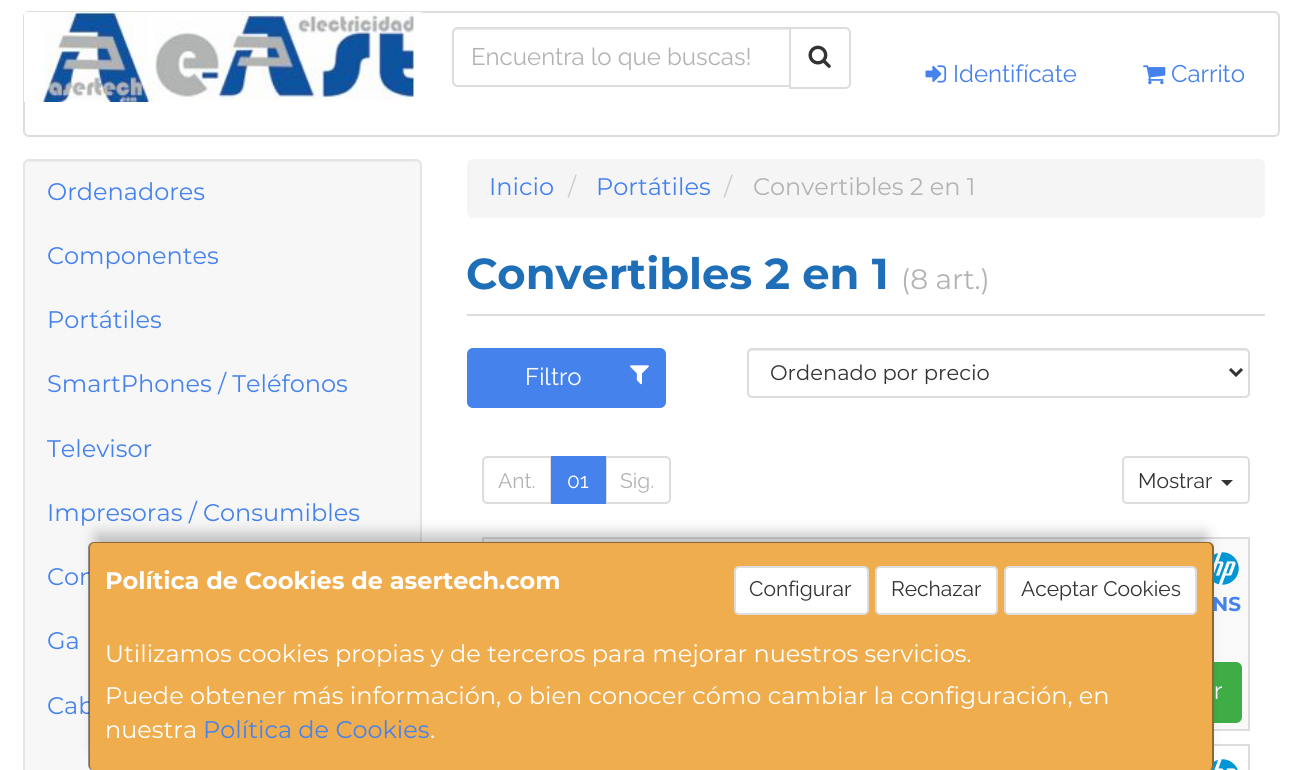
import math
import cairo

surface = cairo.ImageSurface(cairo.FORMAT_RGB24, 1301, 770)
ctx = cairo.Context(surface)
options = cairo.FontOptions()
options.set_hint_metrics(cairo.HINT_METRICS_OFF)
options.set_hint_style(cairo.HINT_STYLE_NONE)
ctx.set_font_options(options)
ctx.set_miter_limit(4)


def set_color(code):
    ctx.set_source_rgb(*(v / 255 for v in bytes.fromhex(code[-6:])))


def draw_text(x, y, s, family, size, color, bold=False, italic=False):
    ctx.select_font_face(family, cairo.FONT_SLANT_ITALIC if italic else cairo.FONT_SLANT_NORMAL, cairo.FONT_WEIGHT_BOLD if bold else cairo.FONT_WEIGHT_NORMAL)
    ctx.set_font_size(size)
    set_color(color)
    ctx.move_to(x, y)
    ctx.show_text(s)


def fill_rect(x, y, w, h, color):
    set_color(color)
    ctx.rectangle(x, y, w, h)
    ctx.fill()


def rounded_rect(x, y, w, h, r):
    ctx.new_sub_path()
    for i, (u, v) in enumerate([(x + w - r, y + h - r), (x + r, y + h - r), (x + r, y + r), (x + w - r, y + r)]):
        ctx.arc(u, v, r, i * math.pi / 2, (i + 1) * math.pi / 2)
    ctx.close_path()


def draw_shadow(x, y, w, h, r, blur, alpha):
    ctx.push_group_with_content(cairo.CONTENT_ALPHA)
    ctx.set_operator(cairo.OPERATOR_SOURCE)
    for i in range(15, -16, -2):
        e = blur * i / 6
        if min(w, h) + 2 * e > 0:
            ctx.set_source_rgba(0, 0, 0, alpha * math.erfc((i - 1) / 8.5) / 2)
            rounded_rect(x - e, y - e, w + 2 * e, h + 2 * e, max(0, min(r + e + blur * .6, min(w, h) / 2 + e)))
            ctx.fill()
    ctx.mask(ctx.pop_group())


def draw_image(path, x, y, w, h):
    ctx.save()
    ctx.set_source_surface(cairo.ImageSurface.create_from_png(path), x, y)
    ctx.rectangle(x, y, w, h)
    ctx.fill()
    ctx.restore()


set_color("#ffffff")
ctx.paint()
rounded_rect(24, 12, 1255, 124, 5)
set_color("#dddddd")
ctx.stroke()
draw_image("assets/img1.png", 24, 12, 398, 90)
ctx.new_path()
ctx.move_to(790, 28)
ctx.line_to(845, 28)
ctx.curve_to(848, 28, 850, 30, 850, 33)
ctx.line_to(850, 83)
ctx.curve_to(850, 86, 848, 88, 845, 88)
ctx.line_to(790, 88)
ctx.close_path()
ctx.stroke()
set_color("#ffffff")
ctx.new_path()
ctx.move_to(458, 27)
ctx.line_to(791, 27)
ctx.line_to(791, 87)
ctx.line_to(458, 87)
ctx.curve_to(454.5, 87, 452, 84.5, 452, 81)
ctx.line_to(452, 33)
ctx.curve_to(452, 29.5, 454.5, 27, 458, 27)
ctx.close_path()
ctx.fill()
set_color("#ececec")
ctx.new_path()
ctx.move_to(458, 30)
ctx.line_to(789, 30)
ctx.line_to(789, 29)
ctx.line_to(458, 29)
ctx.curve_to(455, 29, 453, 31, 453, 34)
ctx.curve_to(453, 32, 455, 30, 458, 30)
ctx.close_path()
ctx.fill()
ctx.new_path()
ctx.move_to(458, 28)
ctx.line_to(790, 28)
ctx.line_to(790, 86)
ctx.line_to(458, 86)
ctx.curve_to(455, 86, 453, 84, 453, 81)
ctx.line_to(453, 33)
ctx.curve_to(453, 30, 455, 28, 458, 28)
ctx.close_path()
set_color("#dddddd")
ctx.stroke()
draw_text(471, 65, "Encuentra lo que buscas!", "Raleway", 24, "#b3b3b3")
draw_image("assets/img2.png", 808, 45, 23, 23)
draw_image("assets/img3.png", 925, 65, 22, 18)
draw_text(953, 82, "Identifícate", "Raleway", 24, "#4582ec")
draw_image("assets/img4.png", 1143, 65, 23, 20)
draw_text(1171, 82, "Carrito", "Raleway", 24, "#4582ec")
set_color("#f7f7f7")
rounded_rect(23, 159, 399, 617, 6)
ctx.fill()
set_color("#ebebeb")
ctx.new_path()
ctx.move_to(28, 162)
ctx.line_to(416, 162)
ctx.curve_to(418, 162, 420, 164, 420, 166)
ctx.curve_to(420, 163, 418, 161, 415, 161)
ctx.line_to(29, 161)
ctx.curve_to(26, 161, 24, 163, 24, 166)
ctx.curve_to(24, 164, 26, 162, 28, 162)
ctx.close_path()
ctx.fill()
rounded_rect(24, 160, 397, 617, 5)
set_color("#e5e5e5")
ctx.stroke()
draw_text(47, 200, "Ordenadores", "Montserrat", 24, "#4582ec")
draw_text(47, 264, "Componentes", "Montserrat", 24, "#4582ec")
draw_text(47, 328, "Portátiles", "Montserrat", 24, "#4582ec")
draw_text(47, 392, "SmartPhones / Teléfonos", "Montserrat", 24, "#4582ec")
draw_text(47, 457, "Televisor", "Montserrat", 24, "#4582ec")
draw_text(47, 521, "Impresoras / Consumibles", "Montserrat", 24, "#4582ec")
draw_text(47, 585, "Con", "Montserrat", 24, "#4582ec")
draw_text(47, 649, "Ga", "Montserrat", 24, "#4582ec")
draw_text(47, 714, "Cab", "Montserrat", 24, "#4582ec")
set_color("#f5f5f5")
rounded_rect(467, 159, 798, 59, 6)
ctx.fill()
draw_text(489, 195, "Inicio", "Montserrat", 24, "#4582ec")
draw_text(568, 195, "/", "Montserrat", 24, "#cccccc")
draw_text(596, 195, "Portátiles", "Montserrat", 24, "#4582ec")
draw_text(724, 195, "/", "Montserrat", 24, "#cccccc")
draw_text(753, 195, "Convertibles 2 en 1", "Montserrat", 24, "#b3b3b3")
fill_rect(467, 314, 798, 2, "#dddddd")
draw_text(466, 289, "Convertibles 2 en 1", "Montserrat", 43.25, "#1e6eb8", bold=True)
draw_text(901, 289, "(8 art.)", "Montserrat", 28, "#b3b3b3")
set_color("#4582ec")
rounded_rect(468, 349, 197, 58, 5)
ctx.fill_preserve()
ctx.stroke()
draw_text(525, 385, "Filtro", "Raleway", 24, "#ffffff")
draw_image("assets/img5.png", 630, 365, 19, 20)
set_color("#ececec")
ctx.new_path()
ctx.move_to(752, 351)
ctx.line_to(1245, 351)
ctx.curve_to(1247, 351, 1248, 352, 1248, 354)
ctx.line_to(1248, 353)
ctx.curve_to(1248, 351, 1247, 350, 1245, 350)
ctx.line_to(752, 350)
ctx.curve_to(751, 350, 750, 351, 749, 352)
ctx.close_path()
ctx.fill()
rounded_rect(748, 349, 501, 48, 4)
set_color("#dddddd")
ctx.stroke()
ctx.new_path()
ctx.move_to(1230, 369)
ctx.line_to(1236, 375)
ctx.line_to(1242, 369)
set_color("#333333")
ctx.set_line_width(3)
ctx.stroke()
draw_text(770, 380, "Ordenado por precio", "Montserrat", 21, "#333333")
ctx.new_path()
ctx.move_to(487, 457)
ctx.line_to(551, 457)
ctx.line_to(551, 503)
ctx.line_to(487, 503)
ctx.curve_to(485, 503, 483, 501, 483, 499)
ctx.line_to(483, 461)
ctx.curve_to(483, 459, 485, 457, 487, 457)
ctx.close_path()
set_color("#dddddd")
ctx.set_line_width(2)
ctx.stroke()
draw_text(498, 488, "Ant.", "Raleway", 21, "#b3b3b3")
ctx.new_path()
ctx.move_to(606, 457)
ctx.line_to(666, 457)
ctx.curve_to(668, 457, 670, 459, 670, 461)
ctx.line_to(670, 499)
ctx.curve_to(670, 501, 668, 503, 666, 503)
ctx.line_to(606, 503)
ctx.close_path()
set_color("#dddddd")
ctx.stroke()
fill_rect(551, 456, 55, 48, "#4582ec")
draw_text(567, 488, "01", "Raleway", 21, "#ffffff")
draw_text(620, 488, "Sig.", "Raleway", 21, "#b3b3b3")
rounded_rect(1123, 457, 126, 46, 4)
set_color("#dddddd")
ctx.stroke()
draw_text(1138, 488, "Mostrar", "Raleway", 21, "#333333")
ctx.new_path()
ctx.move_to(1221, 480)
ctx.line_to(1233, 480)
ctx.line_to(1227, 486)
ctx.close_path()
ctx.fill()
set_color("#f9f9f9")
ctx.rectangle(483, 538, 766, 192)
ctx.fill_preserve()
set_color("#dddddd")
ctx.stroke()
draw_image("assets/img6.png", 1214, 552, 25, 33)
draw_text(1212, 611, "NS", "Montserrat", 20, "#4582ec", bold=True)
set_color("#3fad46")
rounded_rect(1107, 663, 134, 59, 5)
ctx.fill_preserve()
ctx.stroke()
draw_text(1214, 699, "r", "Raleway", 24, "#ffffff")
ctx.rectangle(483, 745, 766, 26)
set_color("#dddddd")
ctx.stroke()
draw_image("assets/img7.png", 1211, 759, 27, 11)
set_color("#000000")
draw_shadow(96, 534, 1110, 215, 0, 7.5, 0.25)
set_color("#f0ad4e")
rounded_rect(89, 542, 1125, 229, 6)
ctx.fill()
ctx.set_source_rgba(0, 0, 0, 0.4)
ctx.set_fill_rule(cairo.FILL_RULE_EVEN_ODD)
ctx.new_path()
ctx.move_to(94, 542)
ctx.line_to(1208, 542)
ctx.curve_to(1211, 542, 1214, 544, 1214, 548)
ctx.line_to(1214, 765)
ctx.curve_to(1214, 768, 1211, 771, 1208, 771)
ctx.line_to(94, 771)
ctx.curve_to(91, 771, 88, 768, 88, 765)
ctx.line_to(88, 548)
ctx.curve_to(88, 544, 91, 542, 94, 542)
ctx.close_path()
ctx.move_to(94, 543)
ctx.line_to(1208, 543)
ctx.curve_to(1210, 543, 1212, 545, 1212, 548)
ctx.line_to(1212, 765)
ctx.curve_to(1212, 768, 1210, 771, 1208, 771)
ctx.line_to(94, 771)
ctx.curve_to(92, 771, 90, 768, 90, 765)
ctx.line_to(90, 548)
ctx.curve_to(90, 545, 92, 543, 94, 543)
ctx.close_path()
ctx.fill()
draw_text(105, 589, "Política de Cookies de asertech.com", "Montserrat", 24, "#ffffff", bold=True)
rounded_rect(735, 567, 133, 47, 4)
ctx.fill_preserve()
set_color("#dddddd")
ctx.stroke()
draw_text(749, 596, "Configurar", "Raleway", 21, "#333333")
set_color("#ffffff")
rounded_rect(876, 567, 121, 47, 4)
ctx.fill_preserve()
set_color("#dddddd")
ctx.stroke()
draw_text(891, 596, "Rechazar", "Raleway", 21, "#333333")
set_color("#ffffff")
rounded_rect(1005, 567, 191, 47, 4)
ctx.fill_preserve()
set_color("#dddddd")
ctx.stroke()
draw_text(1021, 596, "Aceptar Cookies", "Raleway", 21, "#333333")
draw_text(105, 662, "Utilizamos cookies propias y de terceros para mejorar nuestros servicios.", "Montserrat", 24, "#ffffff")
draw_text(105, 704, "Puede obtener más información, o bien conocer cómo cambiar la configuración, en", "Montserrat", 24, "#ffffff")
draw_text(105, 738, "nuestra", "Montserrat", 24, "#ffffff")
draw_text(203, 738, "Política de Cookies", "Montserrat", 24, "#4582ec")
draw_text(430, 738, ".", "Montserrat", 24, "#ffffff")
surface.write_to_png("output.png")
